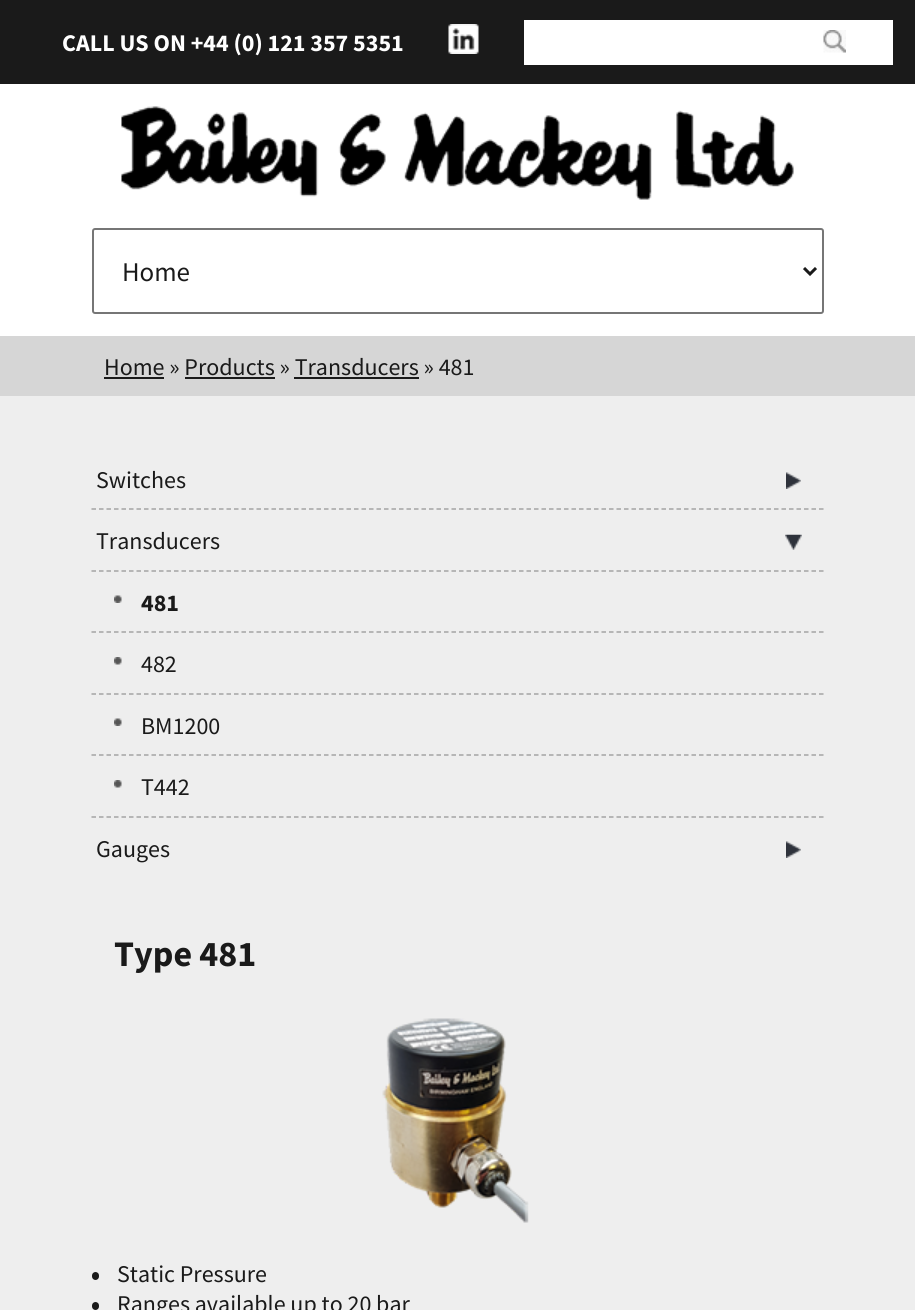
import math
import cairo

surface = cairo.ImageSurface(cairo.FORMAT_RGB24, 915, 1310)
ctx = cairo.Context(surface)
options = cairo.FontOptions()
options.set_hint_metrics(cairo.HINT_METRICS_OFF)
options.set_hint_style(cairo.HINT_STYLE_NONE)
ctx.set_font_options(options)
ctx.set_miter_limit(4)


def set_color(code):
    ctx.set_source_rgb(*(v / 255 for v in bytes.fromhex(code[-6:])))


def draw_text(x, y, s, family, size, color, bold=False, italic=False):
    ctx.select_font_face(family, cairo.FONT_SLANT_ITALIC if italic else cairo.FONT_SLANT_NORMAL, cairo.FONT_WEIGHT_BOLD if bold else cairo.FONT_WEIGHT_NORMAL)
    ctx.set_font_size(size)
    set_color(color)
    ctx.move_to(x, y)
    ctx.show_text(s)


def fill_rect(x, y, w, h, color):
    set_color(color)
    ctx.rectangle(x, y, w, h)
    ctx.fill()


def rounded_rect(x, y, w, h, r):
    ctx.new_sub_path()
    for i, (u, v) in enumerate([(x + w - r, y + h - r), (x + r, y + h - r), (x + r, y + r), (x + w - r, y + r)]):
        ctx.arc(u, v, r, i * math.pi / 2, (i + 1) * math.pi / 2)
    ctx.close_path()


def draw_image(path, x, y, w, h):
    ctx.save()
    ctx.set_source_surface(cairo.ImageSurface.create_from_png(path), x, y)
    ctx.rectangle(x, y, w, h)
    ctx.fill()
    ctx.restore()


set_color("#1a1a1a")
ctx.paint()
draw_text(62, 51, "CALL US ON +44 (0) 121 357 5351", "Source Sans Pro", 24, "#ffffff", bold=True)
draw_image("assets/img1.png", 448, 24, 31, 30)
fill_rect(524, 20, 369, 45, "#ffffff")
draw_image("assets/img2.png", 823, 30, 23, 23)
fill_rect(0, 84, 915, 252, "#ffffff")
draw_image("assets/img3.png", 121, 106, 673, 94)
rounded_rect(93, 229, 730, 84, 2)
set_color("#767676")
ctx.stroke()
ctx.new_path()
ctx.move_to(804, 268)
ctx.line_to(810, 274)
ctx.line_to(816, 268)
set_color("#1a1a1a")
ctx.set_line_width(3)
ctx.stroke()
draw_text(122, 281, "Home", "Source Sans Pro", 27, "#1a1a1a")
fill_rect(0, 336, 915, 60, "#d6d6d6")
draw_text(104, 375, "Home » Products » Transducers » 481", "Source Sans Pro", 24, "#1a1a1a")
fill_rect(104, 377, 60, 2, "#1a1a1a")
fill_rect(185, 377, 90, 2, "#1a1a1a")
fill_rect(294, 377, 125, 2, "#1a1a1a")
fill_rect(0, 396, 915, 914, "#eeeeee")
ctx.new_path()
ctx.move_to(91.5, 509)
ctx.line_to(823.5, 509)
set_color("#a3a3a3")
ctx.set_line_width(1.5)
ctx.set_dash([4.5, 3])
ctx.stroke()
draw_text(96, 488, "Switches", "Source Sans Pro", 24, "#1a1a1a")
draw_image("assets/img4.png", 786, 472, 15, 17)
ctx.new_path()
ctx.move_to(91.5, 817)
ctx.line_to(823.5, 817)
set_color("#a3a3a3")
ctx.stroke()
ctx.new_path()
ctx.move_to(91.5, 571)
ctx.line_to(823.5, 571)
ctx.stroke()
draw_text(96, 549, "Transducers", "Source Sans Pro", 24, "#1a1a1a")
draw_image("assets/img5.png", 785, 534, 17, 16)
draw_image("assets/img6.png", 114, 595, 8, 8)
ctx.new_path()
ctx.move_to(91.5, 632)
ctx.line_to(823.5, 632)
set_color("#a3a3a3")
ctx.stroke()
draw_text(141, 611, "481", "Source Sans Pro", 24, "#1a1a1a", bold=True)
draw_image("assets/img7.png", 114, 657, 8, 8)
ctx.new_path()
ctx.move_to(91.5, 694)
ctx.line_to(823.5, 694)
set_color("#a3a3a3")
ctx.stroke()
draw_text(141, 672, "482", "Source Sans Pro", 24, "#1a1a1a")
draw_image("assets/img6.png", 114, 718, 8, 8)
ctx.new_path()
ctx.move_to(91.5, 755)
ctx.line_to(823.5, 755)
set_color("#a3a3a3")
ctx.stroke()
draw_text(141, 734, "BM1200", "Source Sans Pro", 24, "#1a1a1a")
draw_image("assets/img7.png", 114, 780, 8, 8)
draw_text(141, 795, "T442", "Source Sans Pro", 24, "#1a1a1a")
draw_text(96, 857, "Gauges", "Source Sans Pro", 24, "#1a1a1a")
draw_image("assets/img4.png", 786, 841, 15, 17)
draw_text(114, 966, "Type 481", "Source Sans Pro", 36, "#1a1a1a", bold=True)
draw_image("assets/img8.png", 382, 1018, 147, 205)
rounded_rect(92, 1272, 7, 8, 3.5)
ctx.fill()
draw_text(117, 1282, "Static Pressure", "Source Sans Pro", 24, "#1a1a1a")
rounded_rect(92, 1302, 7, 8, 3.5)
ctx.fill()
draw_text(117, 1312, "Ranges available up to 20 bar", "Source Sans Pro", 24, "#1a1a1a")
surface.write_to_png("output.png")
